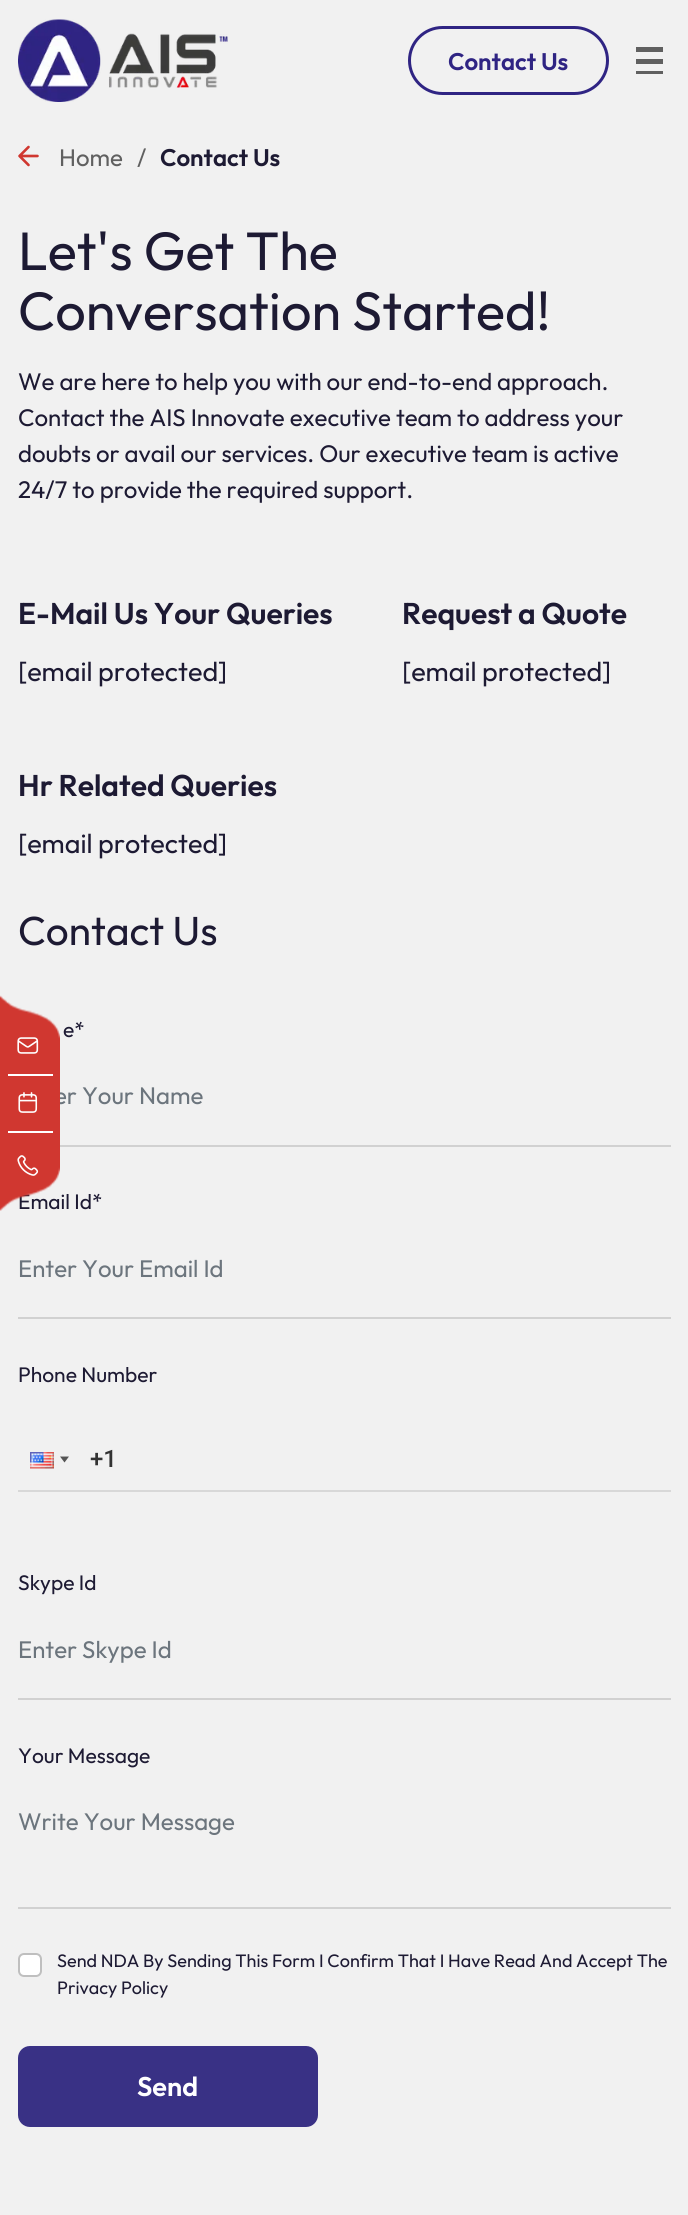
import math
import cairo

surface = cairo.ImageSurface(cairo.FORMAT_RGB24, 688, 2215)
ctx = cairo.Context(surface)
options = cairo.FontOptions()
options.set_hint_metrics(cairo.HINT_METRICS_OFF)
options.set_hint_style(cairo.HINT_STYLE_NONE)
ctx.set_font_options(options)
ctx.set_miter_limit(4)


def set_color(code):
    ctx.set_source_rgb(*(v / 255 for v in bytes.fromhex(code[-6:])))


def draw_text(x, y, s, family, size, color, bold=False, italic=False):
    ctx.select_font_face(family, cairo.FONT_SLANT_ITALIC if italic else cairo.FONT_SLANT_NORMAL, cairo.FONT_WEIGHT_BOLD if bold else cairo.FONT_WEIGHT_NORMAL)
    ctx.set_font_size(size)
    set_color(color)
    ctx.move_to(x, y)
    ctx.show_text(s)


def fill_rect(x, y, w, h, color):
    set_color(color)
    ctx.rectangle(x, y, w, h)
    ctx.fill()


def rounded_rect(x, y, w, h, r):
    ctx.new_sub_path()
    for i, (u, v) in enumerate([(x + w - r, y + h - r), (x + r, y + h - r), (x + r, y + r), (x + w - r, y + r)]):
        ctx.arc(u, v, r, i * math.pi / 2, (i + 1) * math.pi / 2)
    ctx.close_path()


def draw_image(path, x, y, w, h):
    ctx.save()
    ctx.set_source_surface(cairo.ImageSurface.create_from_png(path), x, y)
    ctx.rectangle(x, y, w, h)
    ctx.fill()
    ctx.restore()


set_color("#f1f1f1")
ctx.paint()
draw_image("assets/img1.png", 18, 19, 210, 83)
rounded_rect(409.5, 27.5, 198, 66, 33)
set_color("#2f2483")
ctx.set_line_width(3)
ctx.stroke()
draw_text(448, 70, "Contact Us", "Outfit SemiBold", 24, "#2f2483")
fill_rect(636, 47, 27, 5, "#606060")
fill_rect(636, 59, 27, 5, "#606060")
fill_rect(636, 71, 27, 3, "#606060")
ctx.new_path()
ctx.move_to(37.5, 156)
ctx.line_to(19.5, 156)
ctx.move_to(19.5, 156)
ctx.line_to(28.5, 165)
ctx.move_to(19.5, 156)
ctx.line_to(28.5, 147)
set_color("#d03730")
ctx.set_line_width(2.6)
ctx.set_line_cap(cairo.LINE_CAP_ROUND)
ctx.set_line_join(cairo.LINE_JOIN_ROUND)
ctx.stroke()
draw_text(59, 166, "Home", "Outfit", 24, "#606060")
draw_text(137, 166, "/", "Outfit", 24, "#606060")
draw_text(160, 166, "Contact Us", "Outfit SemiBold", 24, "#1d1a33")
draw_text(18, 270, "Let's Get The", "Outfit", 54, "#1d1a33")
draw_text(18, 330, "Conversation Started!", "Outfit", 54, "#1d1a33")
draw_text(18, 390, "We are here to help you with our end-to-end approach.", "Outfit", 24, "#1d1a33")
draw_text(18, 426, "Contact the AIS Innovate executive team to address your", "Outfit", 24, "#1d1a33")
draw_text(18, 462, "doubts or avail our services. Our executive team is active", "Outfit", 24, "#1d1a33")
draw_text(18, 498, "24/7 to provide the required support.", "Outfit", 24, "#1d1a33")
draw_text(18, 624, "E-Mail Us Your Queries", "Outfit SemiBold", 30, "#1d1a33")
draw_text(18, 681, "[email protected]", "Outfit", 27, "#1d1a33")
draw_text(402, 624, "Request a Quote", "Outfit SemiBold", 30, "#1d1a33")
draw_text(402, 681, "[email protected]", "Outfit", 27, "#1d1a33")
draw_text(18, 796, "Hr Related Queries", "Outfit SemiBold", 30, "#1d1a33")
draw_text(18, 853, "[email protected]", "Outfit", 27, "#1d1a33")
draw_text(18, 945, "Contact Us", "Outfit", 40.5, "#1d1a33")
draw_text(63, 1037, "e*", "Outfit", 21, "#1d1a33")
fill_rect(60, 1145, 611, 2, "#d1d1d1")
draw_text(54, 1104, "er Your Name", "Outfit", 24, "#6c757d")
draw_text(18, 1209, "Email Id*", "Outfit", 21, "#1d1a33")
fill_rect(18, 1317, 653, 2, "#d1d1d1")
draw_text(18, 1277, "Enter Your Email Id", "Outfit", 24, "#6c757d")
draw_text(18, 1382, "Phone Number", "Outfit", 21, "#1d1a33")
draw_image("assets/img2.png", 30, 1452, 24, 17)
set_color("#555555")
ctx.new_path()
ctx.move_to(60, 1456.5)
ctx.line_to(69, 1456.5)
ctx.line_to(64.5, 1462.5)
ctx.close_path()
ctx.fill()
fill_rect(18, 1490, 653, 2, "#d8d8d8")
draw_text(90, 1467, "+1", "Roboto Medium", 24, "#333333")
draw_text(18, 1590, "Skype Id", "Outfit", 21, "#1d1a33")
fill_rect(18, 1698, 653, 2, "#d1d1d1")
draw_text(18, 1658, "Enter Skype Id", "Outfit", 24, "#6c757d")
draw_text(18, 1763, "Your Message", "Outfit", 21, "#1d1a33")
fill_rect(18, 1907, 653, 2, "#d1d1d1")
draw_text(18, 1830, "Write Your Message", "Outfit", 24, "#6c757d")
set_color("#ffffff")
rounded_rect(18, 1953, 24, 24, 6)
ctx.fill()
rounded_rect(19, 1954, 22, 22, 5)
ctx.set_source_rgba(0, 0, 0, 0.25)
ctx.set_line_width(2)
ctx.set_line_cap(cairo.LINE_CAP_BUTT)
ctx.set_line_join(cairo.LINE_JOIN_MITER)
ctx.stroke()
draw_text(57, 1967, "Send NDA By Sending This Form I Confirm That I Have Read And Accept The", "Outfit", 18, "#1d1a33")
draw_text(57, 1994, "Privacy Policy", "Outfit", 18, "#1d1a33")
set_color("#393185")
rounded_rect(19, 2047, 298, 79, 11)
ctx.fill_preserve()
ctx.stroke()
draw_text(137, 2096, "Send", "Outfit SemiBold", 27, "#ffffff")
draw_image("assets/img3.png", 0, 995, 60, 216)
draw_image("assets/img4.png", 17, 1037, 22, 17)
fill_rect(8, 1074, 45, 2, "#ffffff")
draw_image("assets/img5.png", 18, 1092, 20, 21)
fill_rect(8, 1131, 45, 2, "#ffffff")
draw_image("assets/img6.png", 17, 1155, 22, 21)
surface.write_to_png("output.png")
